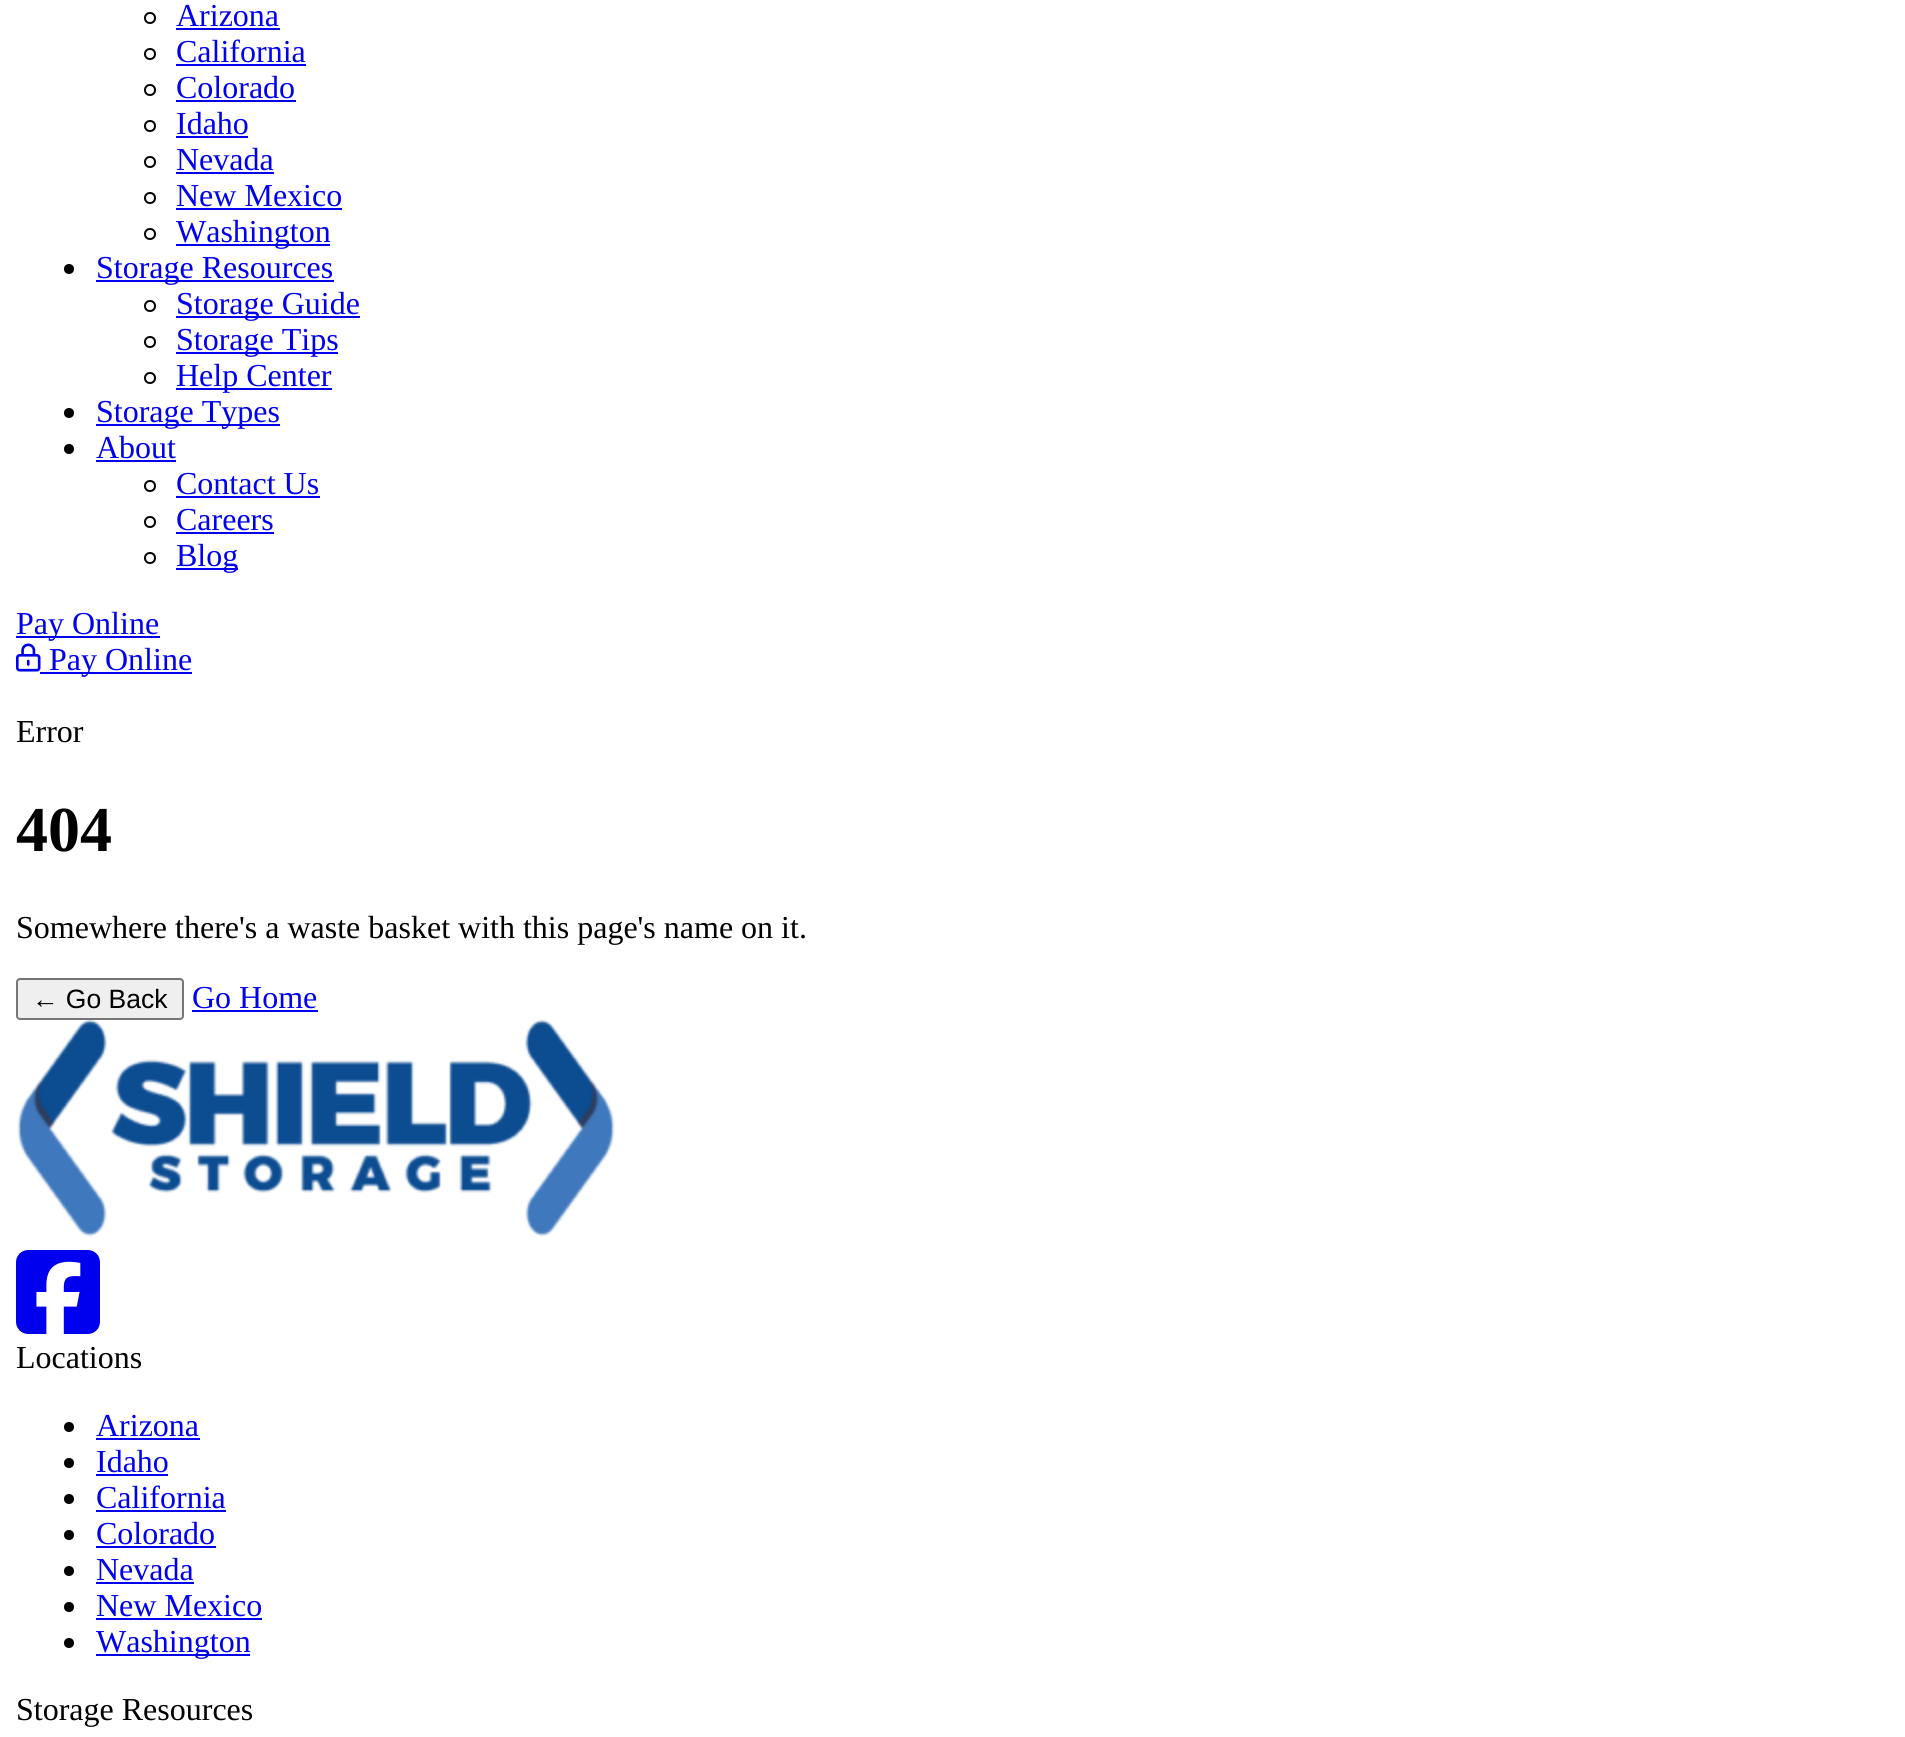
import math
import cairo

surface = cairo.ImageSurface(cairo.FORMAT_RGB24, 1905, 1737)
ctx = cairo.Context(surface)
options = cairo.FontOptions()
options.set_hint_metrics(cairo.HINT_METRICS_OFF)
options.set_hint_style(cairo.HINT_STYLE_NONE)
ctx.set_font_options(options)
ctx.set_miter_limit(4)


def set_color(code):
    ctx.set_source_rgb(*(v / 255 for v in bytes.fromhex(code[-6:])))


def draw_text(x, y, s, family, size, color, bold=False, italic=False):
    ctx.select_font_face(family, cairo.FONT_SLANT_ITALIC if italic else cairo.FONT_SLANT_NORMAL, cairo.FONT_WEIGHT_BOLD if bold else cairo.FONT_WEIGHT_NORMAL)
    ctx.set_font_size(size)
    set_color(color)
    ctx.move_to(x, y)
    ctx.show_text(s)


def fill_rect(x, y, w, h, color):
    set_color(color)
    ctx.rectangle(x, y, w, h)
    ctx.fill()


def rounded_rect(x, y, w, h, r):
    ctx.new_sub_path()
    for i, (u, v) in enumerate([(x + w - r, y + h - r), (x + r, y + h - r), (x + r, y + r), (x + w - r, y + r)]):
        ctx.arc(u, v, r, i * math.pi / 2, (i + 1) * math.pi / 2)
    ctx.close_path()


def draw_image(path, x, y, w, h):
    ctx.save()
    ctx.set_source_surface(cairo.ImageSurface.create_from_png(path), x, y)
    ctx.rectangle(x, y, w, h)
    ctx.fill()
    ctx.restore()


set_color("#ffffff")
ctx.paint()
ctx.arc(150, 18, 5, 0, 2 * math.pi)
set_color("#000000")
ctx.stroke()
draw_text(176, 26, "Arizona", "Liberation Serif", 32, "#0000ee")
fill_rect(176, 28, 104, 2, "#0000ee")
ctx.new_path()
ctx.arc(150, 54, 5, 0, 2 * math.pi)
set_color("#000000")
ctx.stroke()
draw_text(176, 62, "California", "Liberation Serif", 32, "#0000ee")
fill_rect(176, 64, 130, 2, "#0000ee")
ctx.new_path()
ctx.arc(150, 90, 5, 0, 2 * math.pi)
set_color("#000000")
ctx.stroke()
draw_text(176, 98, "Colorado", "Liberation Serif", 32, "#0000ee")
fill_rect(176, 100, 120, 2, "#0000ee")
ctx.new_path()
ctx.arc(150, 126, 5, 0, 2 * math.pi)
set_color("#000000")
ctx.stroke()
draw_text(176, 134, "Idaho", "Liberation Serif", 32, "#0000ee")
fill_rect(176, 136, 72, 2, "#0000ee")
ctx.new_path()
ctx.arc(150, 162, 5, 0, 2 * math.pi)
set_color("#000000")
ctx.stroke()
draw_text(176, 170, "Nevada", "Liberation Serif", 32, "#0000ee")
fill_rect(176, 172, 98, 2, "#0000ee")
ctx.new_path()
ctx.arc(150, 198, 5, 0, 2 * math.pi)
set_color("#000000")
ctx.stroke()
draw_text(176, 206, "New Mexico", "Liberation Serif", 32, "#0000ee")
fill_rect(176, 208, 166, 2, "#0000ee")
ctx.new_path()
ctx.arc(150, 234, 5, 0, 2 * math.pi)
set_color("#000000")
ctx.stroke()
fill_rect(176, 244, 154, 2, "#0000ee")
draw_text(176, 242, "Washington", "Liberation Serif", 32, "#0000ee")
set_color("#000000")
ctx.new_path()
ctx.arc(69, 269, 5, 0, 2 * math.pi)
ctx.fill()
fill_rect(96, 280, 238, 2, "#0000ee")
draw_text(96, 278, "Storage Resources", "Liberation Serif", 32, "#0000ee")
ctx.new_path()
ctx.arc(150, 306, 5, 0, 2 * math.pi)
set_color("#000000")
ctx.stroke()
fill_rect(176, 316, 184, 2, "#0000ee")
draw_text(176, 314, "Storage Guide", "Liberation Serif", 32, "#0000ee")
ctx.new_path()
ctx.arc(150, 342, 5, 0, 2 * math.pi)
set_color("#000000")
ctx.stroke()
fill_rect(176, 352, 162, 2, "#0000ee")
draw_text(176, 350, "Storage Tips", "Liberation Serif", 32, "#0000ee")
ctx.new_path()
ctx.arc(150, 378, 5, 0, 2 * math.pi)
set_color("#000000")
ctx.stroke()
fill_rect(176, 388, 156, 2, "#0000ee")
draw_text(176, 386, "Help Center", "Liberation Serif", 32, "#0000ee")
set_color("#000000")
ctx.new_path()
ctx.arc(69, 413, 5, 0, 2 * math.pi)
ctx.fill()
fill_rect(96, 424, 184, 2, "#0000ee")
draw_text(96, 422, "Storage Types", "Liberation Serif", 32, "#0000ee")
set_color("#000000")
ctx.new_path()
ctx.arc(69, 449, 5, 0, 2 * math.pi)
ctx.fill()
draw_text(96, 458, "About", "Liberation Serif", 32, "#0000ee")
fill_rect(96, 460, 80, 2, "#0000ee")
ctx.new_path()
ctx.arc(150, 486, 5, 0, 2 * math.pi)
set_color("#000000")
ctx.stroke()
draw_text(176, 494, "Contact Us", "Liberation Serif", 32, "#0000ee")
fill_rect(176, 496, 144, 2, "#0000ee")
ctx.new_path()
ctx.arc(150, 522, 5, 0, 2 * math.pi)
set_color("#000000")
ctx.stroke()
draw_text(176, 530, "Careers", "Liberation Serif", 32, "#0000ee")
fill_rect(176, 532, 98, 2, "#0000ee")
ctx.new_path()
ctx.arc(150, 558, 5, 0, 2 * math.pi)
set_color("#000000")
ctx.stroke()
fill_rect(176, 568, 62, 2, "#0000ee")
draw_text(176, 566, "Blog", "Liberation Serif", 32, "#0000ee")
fill_rect(16, 636, 144, 2, "#0000ee")
draw_text(16, 634, "Pay Online", "Liberation Serif", 32, "#0000ee")
draw_image("assets/img1.png", 16, 643, 25, 29)
fill_rect(40, 672, 152, 2, "#0000ee")
draw_text(49, 670, "Pay Online", "Liberation Serif", 32, "#0000ee")
draw_text(16, 742, "Error", "Liberation Serif", 32, "#000000")
draw_text(16, 851, "404", "Liberation Serif", 64, "#000000", bold=True)
draw_text(16, 938, "Somewhere there's a waste basket with this page's name on it.", "Liberation Serif", 32, "#000000")
set_color("#efefef")
rounded_rect(17, 979, 166, 40, 3)
ctx.fill_preserve()
set_color("#767676")
ctx.stroke()
draw_text(32, 1008, "← Go Back", "Liberation Sans", 26.5, "#000000")
draw_text(192, 1008, "Go Home", "Liberation Serif", 32, "#0000ee")
fill_rect(192, 1010, 126, 2, "#0000ee")
draw_image("assets/img2.png", 17, 1020, 598, 216)
draw_image("assets/img3.png", 16, 1250, 84, 84)
draw_text(16, 1368, "Locations", "Liberation Serif", 32, "#000000")
ctx.new_path()
ctx.arc(69, 1427, 5, 0, 2 * math.pi)
ctx.fill()
draw_text(96, 1436, "Arizona", "Liberation Serif", 32, "#0000ee")
fill_rect(96, 1438, 104, 2, "#0000ee")
set_color("#000000")
ctx.new_path()
ctx.arc(69, 1463, 5, 0, 2 * math.pi)
ctx.fill()
draw_text(96, 1472, "Idaho", "Liberation Serif", 32, "#0000ee")
fill_rect(96, 1474, 72, 2, "#0000ee")
set_color("#000000")
ctx.new_path()
ctx.arc(69, 1499, 5, 0, 2 * math.pi)
ctx.fill()
draw_text(96, 1508, "California", "Liberation Serif", 32, "#0000ee")
fill_rect(96, 1510, 130, 2, "#0000ee")
set_color("#000000")
ctx.new_path()
ctx.arc(69, 1535, 5, 0, 2 * math.pi)
ctx.fill()
draw_text(96, 1544, "Colorado", "Liberation Serif", 32, "#0000ee")
fill_rect(96, 1546, 120, 2, "#0000ee")
set_color("#000000")
ctx.new_path()
ctx.arc(69, 1571, 5, 0, 2 * math.pi)
ctx.fill()
draw_text(96, 1580, "Nevada", "Liberation Serif", 32, "#0000ee")
fill_rect(96, 1582, 98, 2, "#0000ee")
set_color("#000000")
ctx.new_path()
ctx.arc(69, 1607, 5, 0, 2 * math.pi)
ctx.fill()
draw_text(96, 1616, "New Mexico", "Liberation Serif", 32, "#0000ee")
fill_rect(96, 1618, 166, 2, "#0000ee")
set_color("#000000")
ctx.new_path()
ctx.arc(69, 1643, 5, 0, 2 * math.pi)
ctx.fill()
fill_rect(96, 1654, 154, 2, "#0000ee")
draw_text(96, 1652, "Washington", "Liberation Serif", 32, "#0000ee")
draw_text(16, 1720, "Storage Resources", "Liberation Serif", 32, "#000000")
surface.write_to_png("output.png")
